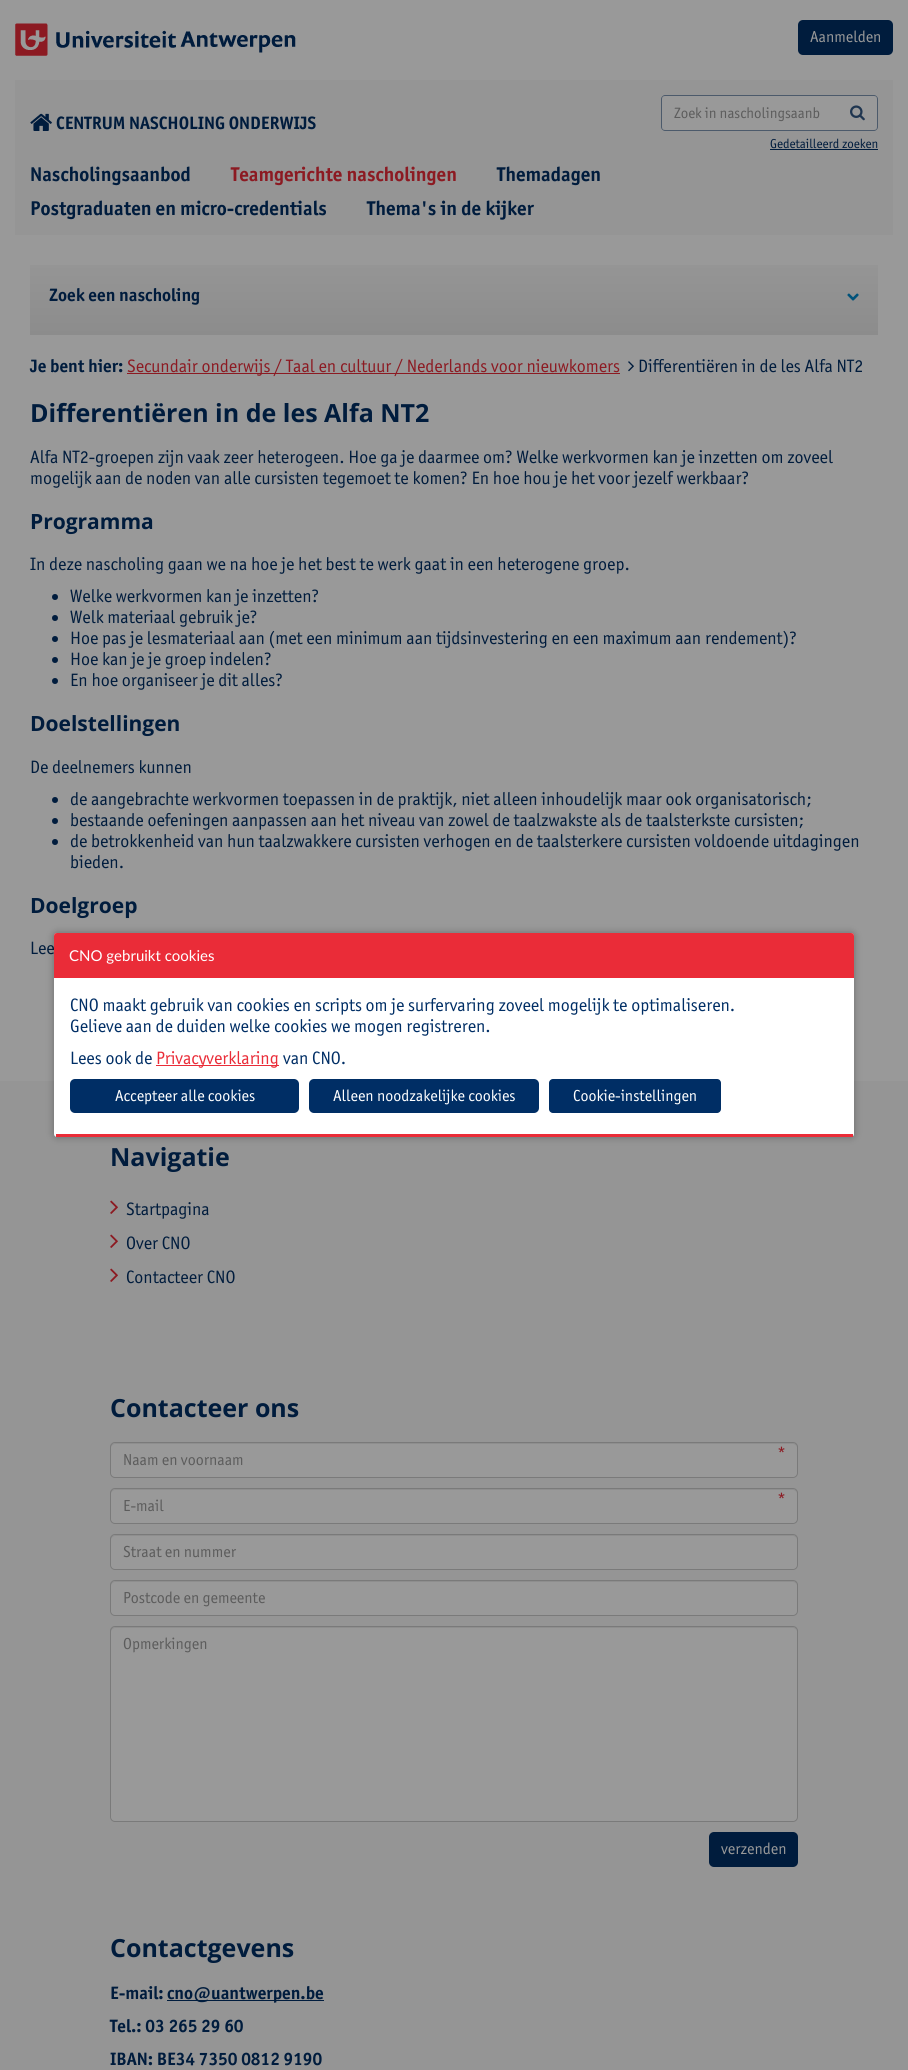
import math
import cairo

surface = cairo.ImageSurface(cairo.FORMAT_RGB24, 908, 2070)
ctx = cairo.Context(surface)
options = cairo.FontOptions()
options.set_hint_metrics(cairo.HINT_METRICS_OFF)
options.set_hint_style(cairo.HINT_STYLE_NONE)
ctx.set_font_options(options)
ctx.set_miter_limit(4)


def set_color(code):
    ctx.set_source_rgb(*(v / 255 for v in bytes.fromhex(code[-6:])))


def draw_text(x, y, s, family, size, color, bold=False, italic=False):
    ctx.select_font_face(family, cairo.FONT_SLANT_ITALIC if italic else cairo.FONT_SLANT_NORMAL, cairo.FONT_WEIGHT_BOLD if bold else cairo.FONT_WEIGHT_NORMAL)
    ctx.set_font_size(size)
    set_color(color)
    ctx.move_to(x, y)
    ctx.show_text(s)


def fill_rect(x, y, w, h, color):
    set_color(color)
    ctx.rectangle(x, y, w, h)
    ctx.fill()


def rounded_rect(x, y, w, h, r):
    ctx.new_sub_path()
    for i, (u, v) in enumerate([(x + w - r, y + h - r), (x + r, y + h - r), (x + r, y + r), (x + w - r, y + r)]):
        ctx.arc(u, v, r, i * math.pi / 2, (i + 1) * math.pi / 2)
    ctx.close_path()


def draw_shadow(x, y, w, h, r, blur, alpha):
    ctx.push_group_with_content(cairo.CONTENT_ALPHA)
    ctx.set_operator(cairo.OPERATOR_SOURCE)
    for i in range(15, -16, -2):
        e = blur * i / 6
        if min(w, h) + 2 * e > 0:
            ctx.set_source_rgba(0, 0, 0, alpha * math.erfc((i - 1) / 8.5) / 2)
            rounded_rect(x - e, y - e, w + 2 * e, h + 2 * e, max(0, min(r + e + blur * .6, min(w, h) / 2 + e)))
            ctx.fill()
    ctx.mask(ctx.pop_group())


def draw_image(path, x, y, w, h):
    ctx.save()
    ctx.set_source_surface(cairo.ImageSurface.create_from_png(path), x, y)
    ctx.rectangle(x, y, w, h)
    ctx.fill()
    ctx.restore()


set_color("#999999")
ctx.paint()
draw_image("assets/img1.png", 15, 23, 281, 33)
set_color("#001c3d")
rounded_rect(798, 20, 95, 35, 5)
ctx.fill()
draw_text(810, 42, "Aanmelden", "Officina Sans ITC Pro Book", 16, "#999999")
fill_rect(15, 80, 878, 155, "#959595")
draw_image("assets/img2.png", 30, 113, 22, 18)
draw_text(56, 129, "CENTRUM NASCHOLING ONDERWIJS", "Officina Sans ITC Pro Book", 18, "#001c3d", bold=True)
set_color("#999999")
ctx.new_path()
ctx.move_to(665, 95)
ctx.line_to(838, 95)
ctx.line_to(838, 131)
ctx.line_to(665, 131)
ctx.curve_to(663, 131, 661, 129, 661, 127)
ctx.line_to(661, 99)
ctx.curve_to(661, 97, 663, 95, 665, 95)
ctx.close_path()
ctx.fill()
set_color("#4c5a6b")
ctx.set_fill_rule(cairo.FILL_RULE_EVEN_ODD)
ctx.new_path()
ctx.move_to(665, 95)
ctx.line_to(838, 95)
ctx.line_to(838, 131)
ctx.line_to(665, 131)
ctx.curve_to(663, 131, 661, 129, 661, 127)
ctx.line_to(661, 99)
ctx.curve_to(661, 97, 663, 95, 665, 95)
ctx.close_path()
ctx.move_to(665, 96)
ctx.line_to(838, 96)
ctx.line_to(838, 130)
ctx.line_to(665, 130)
ctx.curve_to(663, 130, 662, 129, 662, 127)
ctx.line_to(662, 99)
ctx.curve_to(662, 97, 663, 96, 665, 96)
ctx.close_path()
ctx.fill()
draw_text(674, 118, "Zoek in nascholingsaanb", "Officina Sans ITC Pro Book", 15, "#5c5c5c")
set_color("#999999")
ctx.new_path()
ctx.move_to(838, 95)
ctx.line_to(874, 95)
ctx.curve_to(876, 95, 878, 97, 878, 99)
ctx.line_to(878, 127)
ctx.curve_to(878, 129, 876, 131, 874, 131)
ctx.line_to(838, 131)
ctx.close_path()
ctx.fill()
set_color("#4c5a6b")
ctx.new_path()
ctx.move_to(838, 95)
ctx.line_to(874, 95)
ctx.curve_to(876, 95, 878, 97, 878, 99)
ctx.line_to(878, 127)
ctx.curve_to(878, 129, 876, 131, 874, 131)
ctx.line_to(838, 131)
ctx.close_path()
ctx.move_to(838, 96)
ctx.line_to(874, 96)
ctx.curve_to(876, 96, 877, 97, 877, 99)
ctx.line_to(877, 127)
ctx.curve_to(877, 129, 876, 130, 874, 130)
ctx.line_to(838, 130)
ctx.close_path()
ctx.fill()
draw_image("assets/img3.png", 850, 105, 15, 16)
draw_text(770, 148, "Gedetailleerd zoeken", "Officina Sans ITC Pro Book", 13, "#001c3d")
fill_rect(770, 149, 108, 1, "#001c3d")
draw_text(30, 181, "Nascholingsaanbod", "Officina Sans ITC Pro Book", 20, "#001c3d", bold=True)
draw_text(231, 181, "Teamgerichte nascholingen", "Officina Sans ITC Pro Book", 20, "#8c1a22", bold=True)
draw_text(497, 181, "Themadagen", "Officina Sans ITC Pro Book", 20, "#001c3d", bold=True)
draw_text(30, 215, "Postgraduaten en micro-credentials", "Officina Sans ITC Pro Book", 20, "#001c3d", bold=True)
draw_text(367, 215, "Thema's in de kijker", "Officina Sans ITC Pro Book", 20, "#001c3d", bold=True)
gradient = cairo.LinearGradient(454, 265, 454, 335)
gradient.add_color_stop_rgba(0, 0.584, 0.584, 0.584, 1)
gradient.add_color_stop_rgba(1, 0.549, 0.549, 0.549, 1)
ctx.set_source(gradient)
ctx.rectangle(30, 265, 848, 70)
ctx.fill()
draw_text(49, 301, "Zoek een nascholing", "Officina Sans ITC Pro Book", 18, "#001c3d", bold=True)
draw_image("assets/img4.png", 847, 293, 12, 8)
draw_text(30, 372, "Je bent hier:", "Officina Sans ITC Pro Book", 18, "#001c3d", bold=True)
fill_rect(127, 373, 493, 1, "#8c1a22")
draw_text(127, 372, "Secundair onderwijs / Taal en cultuur / Nederlands voor nieuwkomers", "Officina Sans ITC Pro Book", 18, "#8c1a22")
draw_image("assets/img5.png", 628, 361, 6, 11)
draw_text(638, 372, "Differentiëren in de les Alfa NT2", "Officina Sans ITC Pro Book", 18, "#001c3d")
draw_text(30, 422, "Differentiëren in de les Alfa NT2", "Open Sans", 25, "#001c3d", bold=True)
draw_text(30, 463, "Alfa NT2-groepen zijn vaak zeer heterogeen. Hoe ga je daarmee om? Welke werkvormen kan je inzetten om zoveel", "Officina Sans ITC Pro Book", 18, "#001c3d")
draw_text(30, 484, "mogelijk aan de noden van alle cursisten tegemoet te komen? En hoe hou je het voor jezelf werkbaar?", "Officina Sans ITC Pro Book", 18, "#001c3d")
draw_text(30, 529, "Programma", "Open Sans", 21, "#001c3d", bold=True)
draw_text(30, 570, "In deze nascholing gaan we na hoe je het best te werk gaat in een heterogene groep.", "Officina Sans ITC Pro Book", 18, "#001c3d")
ctx.new_path()
ctx.arc(55, 597, 3, 0, 2 * math.pi)
ctx.fill()
draw_text(70, 602, "Welke werkvormen kan je inzetten?", "Officina Sans ITC Pro Book", 18, "#001c3d")
ctx.new_path()
ctx.arc(55, 618, 3, 0, 2 * math.pi)
ctx.fill()
draw_text(70, 623, "Welk materiaal gebruik je?", "Officina Sans ITC Pro Book", 18, "#001c3d")
ctx.new_path()
ctx.arc(55, 639, 3, 0, 2 * math.pi)
ctx.fill()
draw_text(70, 644, "Hoe pas je lesmateriaal aan (met een minimum aan tijdsinvestering en een maximum aan rendement)?", "Officina Sans ITC Pro Book", 18, "#001c3d")
ctx.new_path()
ctx.arc(55, 660, 3, 0, 2 * math.pi)
ctx.fill()
draw_text(70, 665, "Hoe kan je je groep indelen?", "Officina Sans ITC Pro Book", 18, "#001c3d")
ctx.new_path()
ctx.arc(55, 681, 3, 0, 2 * math.pi)
ctx.fill()
draw_text(70, 686, "En hoe organiseer je dit alles?", "Officina Sans ITC Pro Book", 18, "#001c3d")
draw_text(30, 731, "Doelstellingen", "Open Sans", 21, "#001c3d", bold=True)
draw_text(30, 773, "De deelnemers kunnen", "Officina Sans ITC Pro Book", 18, "#001c3d")
ctx.new_path()
ctx.arc(55, 800, 3, 0, 2 * math.pi)
ctx.fill()
draw_text(70, 805, "de aangebrachte werkvormen toepassen in de praktijk, niet alleen inhoudelijk maar ook organisatorisch;", "Officina Sans ITC Pro Book", 18, "#001c3d")
ctx.new_path()
ctx.arc(55, 821, 3, 0, 2 * math.pi)
ctx.fill()
draw_text(70, 826, "bestaande oefeningen aanpassen aan het niveau van zowel de taalzwakste als de taalsterkste cursisten;", "Officina Sans ITC Pro Book", 18, "#001c3d")
ctx.new_path()
ctx.arc(55, 842, 3, 0, 2 * math.pi)
ctx.fill()
draw_text(70, 847, "de betrokkenheid van hun taalzwakkere cursisten verhogen en de taalsterkere cursisten voldoende uitdagingen", "Officina Sans ITC Pro Book", 18, "#001c3d")
draw_text(70, 868, "bieden.", "Officina Sans ITC Pro Book", 18, "#001c3d")
draw_text(30, 913, "Doelgroep", "Open Sans", 21, "#001c3d", bold=True)
draw_text(30, 954, "Lee", "Officina Sans ITC Pro Book", 18, "#001c3d")
fill_rect(0, 1081, 908, 989, "#959595")
draw_text(110, 1166, "Navigatie", "Open Sans", 25, "#001c3d", bold=True)
draw_image("assets/img6.png", 110, 1200, 8, 14)
draw_text(126, 1215, "Startpagina", "Officina Sans ITC Pro Book", 18, "#001c3d")
draw_image("assets/img6.png", 110, 1234, 8, 14)
draw_text(126, 1249, "Over CNO", "Officina Sans ITC Pro Book", 18, "#001c3d")
draw_image("assets/img6.png", 110, 1268, 8, 14)
draw_text(126, 1283, "Contacteer CNO", "Officina Sans ITC Pro Book", 18, "#001c3d")
draw_text(110, 1417, "Contacteer ons", "Open Sans", 25, "#001c3d", bold=True)
set_color("#999999")
rounded_rect(110, 1442, 688, 36, 5)
ctx.fill()
set_color("#8e8e8e")
ctx.set_fill_rule(cairo.FILL_RULE_WINDING)
ctx.new_path()
ctx.move_to(115, 1444)
ctx.line_to(793, 1444)
ctx.curve_to(795, 1444, 797, 1446, 797, 1448)
ctx.curve_to(797, 1445, 796, 1443, 793, 1443)
ctx.line_to(115, 1443)
ctx.line_to(112, 1444)
ctx.line_to(111, 1445)
ctx.line_to(111, 1448)
ctx.curve_to(111, 1446, 113, 1444, 115, 1444)
ctx.close_path()
ctx.fill()
rounded_rect(110.5, 1442.5, 687, 35, 4.5)
set_color("#7a7a7a")
ctx.set_line_width(1)
ctx.stroke()
draw_text(777, 1459, "*", "Officina Sans ITC Pro Book", 18, "#8c1a22")
draw_text(123, 1465, "Naam en voornaam", "Officina Sans ITC Pro Book", 16, "#5c5c5c")
set_color("#999999")
rounded_rect(110, 1488, 688, 36, 5)
ctx.fill()
set_color("#8e8e8e")
ctx.new_path()
ctx.move_to(115, 1490)
ctx.line_to(793, 1490)
ctx.curve_to(795, 1490, 797, 1492, 797, 1494)
ctx.curve_to(797, 1491, 796, 1489, 793, 1489)
ctx.line_to(115, 1489)
ctx.line_to(112, 1490)
ctx.line_to(111, 1491)
ctx.line_to(111, 1494)
ctx.curve_to(111, 1492, 113, 1490, 115, 1490)
ctx.close_path()
ctx.fill()
rounded_rect(110.5, 1488.5, 687, 35, 4.5)
set_color("#7a7a7a")
ctx.stroke()
draw_text(777, 1505, "*", "Officina Sans ITC Pro Book", 18, "#8c1a22")
draw_text(123, 1511, "E-mail", "Officina Sans ITC Pro Book", 16, "#5c5c5c")
set_color("#999999")
rounded_rect(110, 1534, 688, 36, 5)
ctx.fill()
set_color("#8e8e8e")
ctx.new_path()
ctx.move_to(115, 1536)
ctx.line_to(793, 1536)
ctx.curve_to(795, 1536, 797, 1538, 797, 1540)
ctx.curve_to(797, 1537, 796, 1535, 793, 1535)
ctx.line_to(115, 1535)
ctx.line_to(112, 1536)
ctx.line_to(111, 1537)
ctx.line_to(111, 1540)
ctx.curve_to(111, 1538, 113, 1536, 115, 1536)
ctx.close_path()
ctx.fill()
rounded_rect(110.5, 1534.5, 687, 35, 4.5)
set_color("#7a7a7a")
ctx.stroke()
draw_text(123, 1557, "Straat en nummer", "Officina Sans ITC Pro Book", 16, "#5c5c5c")
set_color("#999999")
rounded_rect(110, 1580, 688, 36, 5)
ctx.fill()
set_color("#8e8e8e")
ctx.new_path()
ctx.move_to(115, 1582)
ctx.line_to(793, 1582)
ctx.curve_to(795, 1582, 797, 1584, 797, 1586)
ctx.curve_to(797, 1583, 796, 1581, 793, 1581)
ctx.line_to(115, 1581)
ctx.line_to(112, 1582)
ctx.line_to(111, 1583)
ctx.line_to(111, 1586)
ctx.curve_to(111, 1584, 113, 1582, 115, 1582)
ctx.close_path()
ctx.fill()
rounded_rect(110.5, 1580.5, 687, 35, 4.5)
set_color("#7a7a7a")
ctx.stroke()
draw_text(123, 1603, "Postcode en gemeente", "Officina Sans ITC Pro Book", 16, "#5c5c5c")
set_color("#999999")
rounded_rect(110, 1626, 688, 196, 5)
ctx.fill()
set_color("#8e8e8e")
ctx.new_path()
ctx.move_to(115, 1628)
ctx.line_to(793, 1628)
ctx.curve_to(795, 1628, 797, 1630, 797, 1632)
ctx.curve_to(797, 1629, 796, 1627, 793, 1627)
ctx.line_to(115, 1627)
ctx.line_to(112, 1628)
ctx.line_to(111, 1629)
ctx.line_to(111, 1632)
ctx.curve_to(111, 1630, 113, 1628, 115, 1628)
ctx.close_path()
ctx.fill()
rounded_rect(110.5, 1626.5, 687, 195, 4.5)
set_color("#7a7a7a")
ctx.stroke()
draw_text(123, 1649, "Opmerkingen", "Officina Sans ITC Pro Book", 16, "#5c5c5c")
set_color("#001c3d")
rounded_rect(709, 1832, 89, 35, 5)
ctx.fill()
draw_text(721, 1854, "verzenden", "Officina Sans ITC Pro Book", 16, "#999999")
draw_text(110, 1957, "Contactgevens", "Open Sans", 25, "#001c3d", bold=True)
draw_text(110, 1999, "E-mail:", "Officina Sans ITC Pro Book", 18, "#001c3d", bold=True)
fill_rect(167, 2000, 157, 1, "#001c3d")
draw_text(167, 1999, "cno@uantwerpen.be", "Officina Sans ITC Pro Book", 18, "#001c3d", bold=True)
draw_text(110, 2032, "Tel.: 03 265 29 60", "Officina Sans ITC Pro Book", 18, "#001c3d", bold=True)
draw_text(110, 2065, "IBAN: BE34 7350 0812 9190", "Officina Sans ITC Pro Book", 18, "#001c3d", bold=True)
set_color("#000000")
draw_shadow(54, 933, 800, 204, 3, 4, 0.3)
set_color("#ffffff")
rounded_rect(54, 933, 800, 204, 3)
ctx.fill()
fill_rect(56, 1134, 797, 3, "#ea2c38")
ctx.new_path()
ctx.move_to(57, 933)
ctx.curve_to(55, 933, 54, 934, 54, 936)
ctx.line_to(54, 978)
ctx.line_to(854, 978)
ctx.line_to(854, 936)
ctx.curve_to(854, 934, 853, 933, 851, 933)
ctx.close_path()
ctx.fill()
draw_text(69, 961, "CNO gebruikt cookies", "Lato", 15, "#ffffff")
draw_text(70, 1011, "CNO maakt gebruik van cookies en scripts om je surfervaring zoveel mogelijk te optimaliseren.", "Officina Sans ITC Pro Book", 18, "#002e65")
draw_text(70, 1032, "Gelieve aan de duiden welke cookies we mogen registreren.", "Officina Sans ITC Pro Book", 18, "#002e65")
draw_text(70, 1064, "Lees ook de", "Officina Sans ITC Pro Book", 18, "#002e65")
fill_rect(156, 1065, 123, 1, "#ea2c38")
draw_text(156, 1064, "Privacyverklaring", "Officina Sans ITC Pro Book", 18, "#ea2c38")
draw_text(283, 1064, "van CNO.", "Officina Sans ITC Pro Book", 18, "#002e65")
rounded_rect(70, 1079, 229, 34, 5)
ctx.fill()
draw_text(115, 1101, "Accepteer alle cookies", "Officina Sans ITC Pro Book", 16, "#ffffff")
set_color("#002e65")
rounded_rect(309, 1079, 230, 34, 5)
ctx.fill()
draw_text(333, 1101, "Alleen noodzakelijke cookies", "Officina Sans ITC Pro Book", 16, "#ffffff")
set_color("#002e65")
rounded_rect(549, 1079, 172, 34, 4)
ctx.fill()
draw_text(573, 1101, "Cookie-instellingen", "Officina Sans ITC Pro Book", 16, "#ffffff")
surface.write_to_png("output.png")
